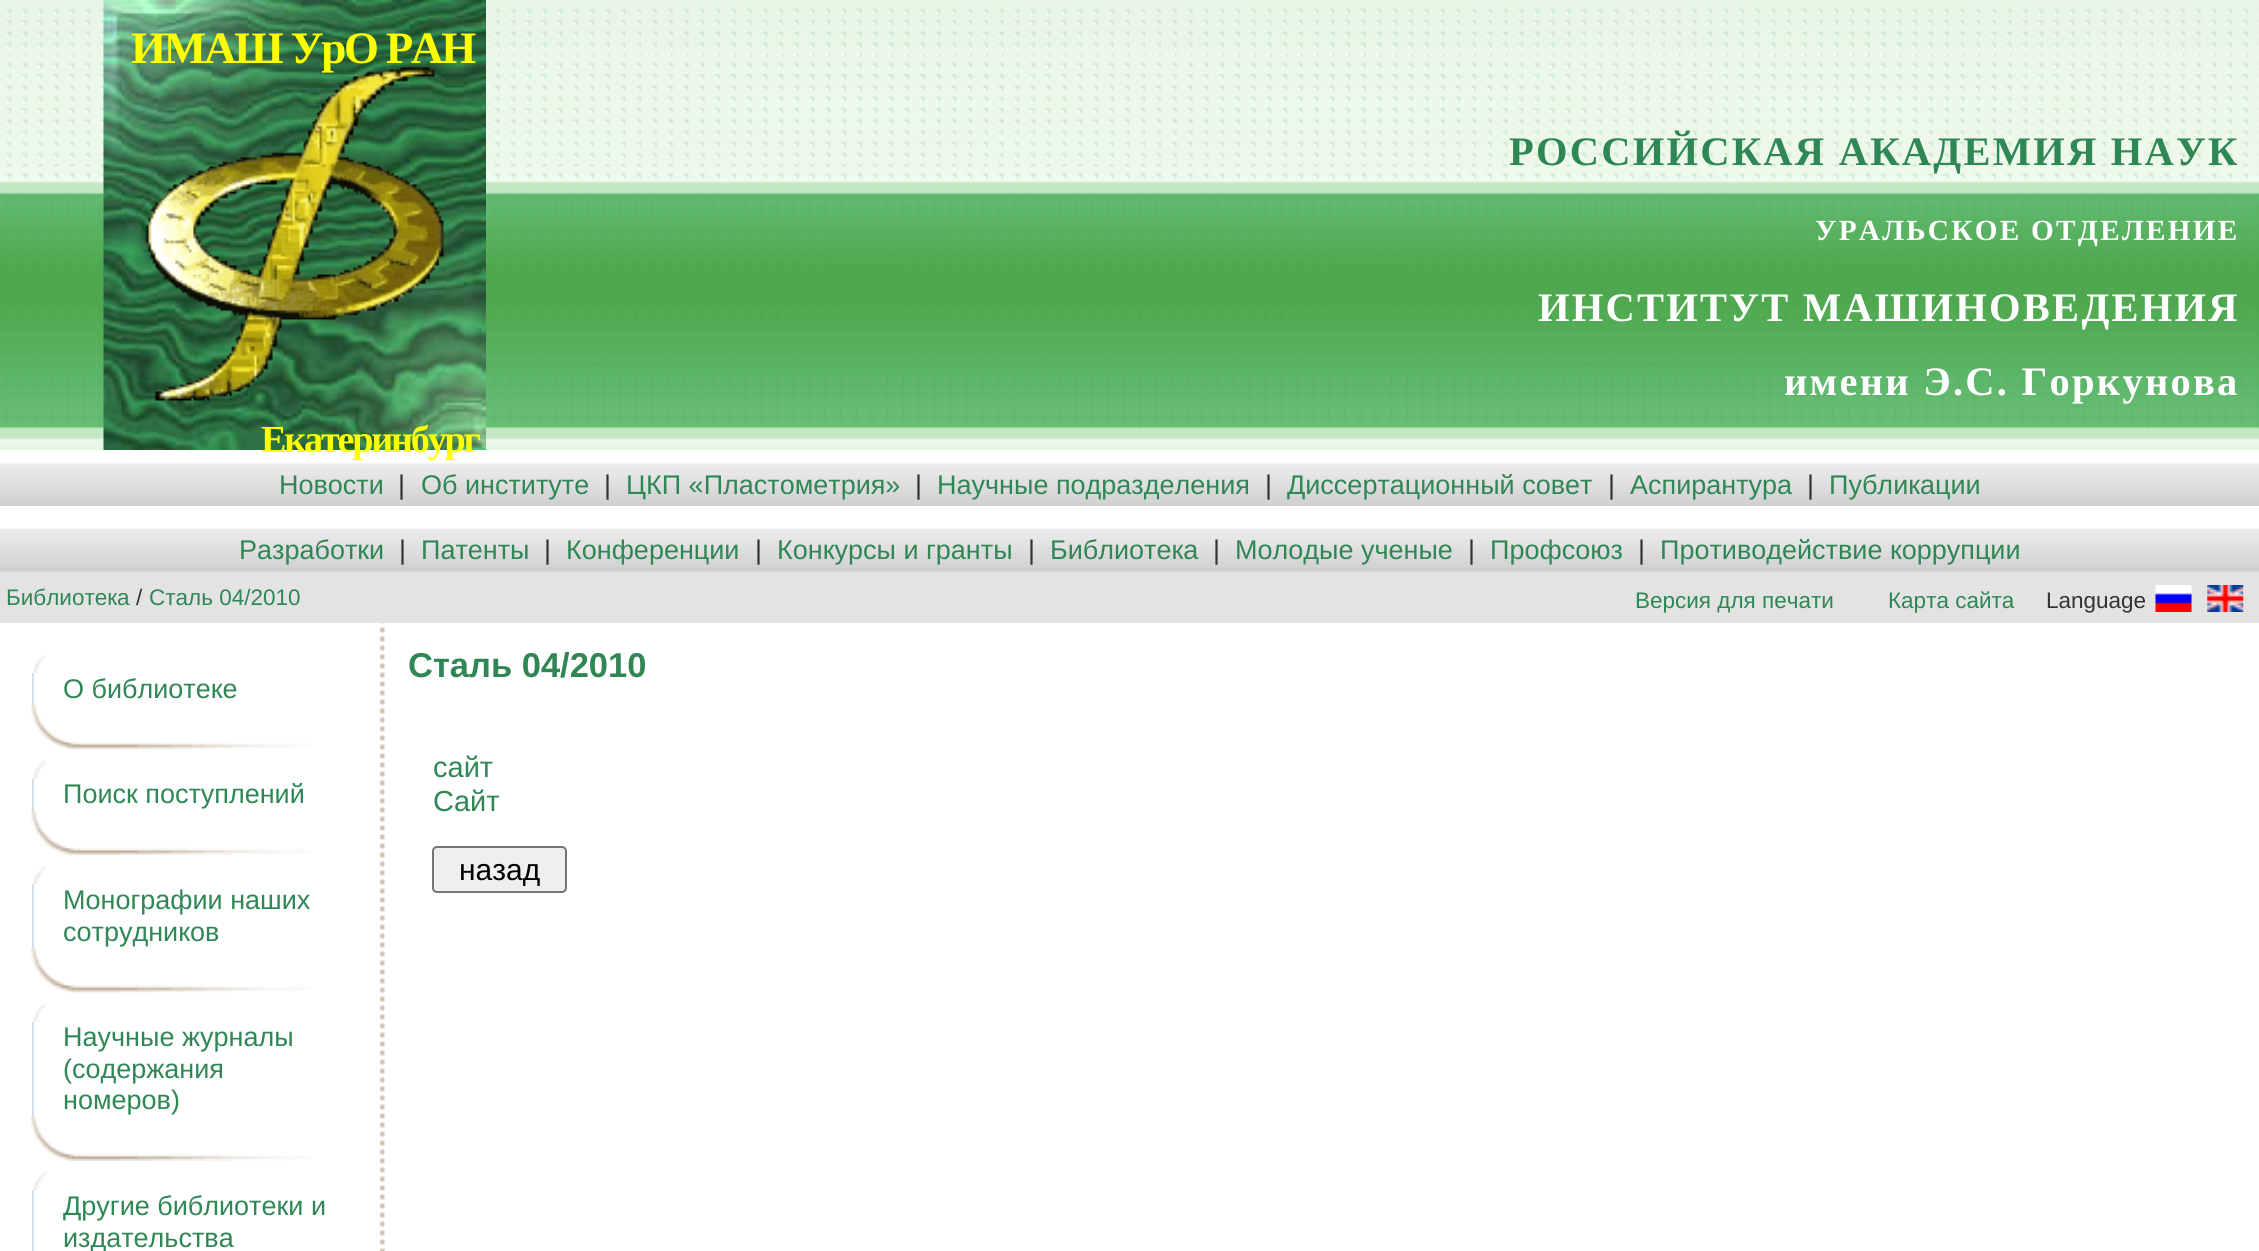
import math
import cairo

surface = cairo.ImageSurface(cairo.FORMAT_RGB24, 2259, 1251)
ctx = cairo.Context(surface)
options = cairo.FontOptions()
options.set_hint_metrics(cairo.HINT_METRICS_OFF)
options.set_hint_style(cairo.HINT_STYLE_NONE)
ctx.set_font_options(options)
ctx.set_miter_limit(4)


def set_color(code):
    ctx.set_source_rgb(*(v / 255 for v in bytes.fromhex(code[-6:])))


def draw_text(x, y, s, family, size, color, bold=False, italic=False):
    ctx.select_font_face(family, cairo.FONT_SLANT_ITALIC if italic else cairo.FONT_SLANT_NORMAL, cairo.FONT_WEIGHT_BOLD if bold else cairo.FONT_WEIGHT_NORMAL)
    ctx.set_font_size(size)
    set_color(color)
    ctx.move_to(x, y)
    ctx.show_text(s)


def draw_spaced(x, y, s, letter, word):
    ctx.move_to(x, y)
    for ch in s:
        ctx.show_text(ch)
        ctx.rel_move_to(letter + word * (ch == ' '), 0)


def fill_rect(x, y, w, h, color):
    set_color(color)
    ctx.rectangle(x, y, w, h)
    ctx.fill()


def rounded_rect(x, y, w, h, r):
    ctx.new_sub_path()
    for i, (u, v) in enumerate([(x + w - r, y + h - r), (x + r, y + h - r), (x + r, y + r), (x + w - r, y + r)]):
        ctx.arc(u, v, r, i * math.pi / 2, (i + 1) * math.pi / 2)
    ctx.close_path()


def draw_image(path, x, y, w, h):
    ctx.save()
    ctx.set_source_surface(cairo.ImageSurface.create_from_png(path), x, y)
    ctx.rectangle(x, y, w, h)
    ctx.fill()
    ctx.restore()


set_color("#ffffff")
ctx.paint()
draw_image("assets/img1.png", 0, 0, 2259, 450)
draw_image("assets/img2.png", 103, 0, 383, 450)
draw_image("assets/img3.png", 145, 67, 299, 335)
ctx.select_font_face("Liberation Serif", cairo.FONT_SLANT_NORMAL, cairo.FONT_WEIGHT_BOLD)
ctx.set_font_size(45)
set_color("#ffff00")
draw_spaced(131, 63, "ИМАШ УрО РАН", -2.25, 0)
ctx.set_font_size(38.25)
draw_spaced(261, 452, "Екатеринбург", -2.25, 0)
ctx.set_font_size(40.5)
set_color("#2f8755")
draw_spaced(1509, 165, "PОССИЙСКАЯ АКАДЕМИЯ НАУК", 2.25, 0)
ctx.set_font_size(29.25)
set_color("#ffffff")
draw_spaced(1815, 240, "УРАЛЬСКОЕ ОТДЕЛЕНИЕ", 2.25, 0)
ctx.set_font_size(40.5)
draw_spaced(1538, 321, "ИНСТИТУТ МАШИНОВЕДЕНИЯ", 2.25, 0)
draw_spaced(1784, 395, "имени Э.С. Горкунова", 2.25, 0)
draw_image("assets/img4.png", 0, 463, 2259, 43)
draw_text(279, 494, "Новости", "Liberation Sans", 27, "#2f8755")
draw_text(398, 494, "|", "Liberation Sans", 27, "#333333")
draw_text(421, 494, "Об институте", "Liberation Sans", 27, "#2f8755")
draw_text(604, 494, "|", "Liberation Sans", 27, "#333333")
draw_text(626, 494, "ЦКП «Пластометрия»", "Liberation Sans", 27, "#2f8755")
draw_text(915, 494, "|", "Liberation Sans", 27, "#333333")
draw_text(937, 494, "Научные подразделения", "Liberation Sans", 27, "#2f8755")
draw_text(1265, 494, "|", "Liberation Sans", 27, "#333333")
draw_text(1287, 494, "Диссертационный совет", "Liberation Sans", 27, "#2f8755")
draw_text(1608, 494, "|", "Liberation Sans", 27, "#333333")
draw_text(1630, 494, "Аспирантура", "Liberation Sans", 27, "#2f8755")
draw_text(1807, 494, "|", "Liberation Sans", 27, "#333333")
draw_text(1829, 494, "Публикации", "Liberation Sans", 27, "#2f8755")
fill_rect(0, 571, 2259, 52, "#e3e3e3")
draw_image("assets/img5.png", 0, 528, 2259, 44)
draw_text(239, 559, "Разработки", "Liberation Sans", 27, "#2f8755")
draw_text(399, 559, "|", "Liberation Sans", 27, "#333333")
draw_text(421, 559, "Патенты", "Liberation Sans", 27, "#2f8755")
draw_text(544, 559, "|", "Liberation Sans", 27, "#333333")
draw_text(566, 559, "Конференции", "Liberation Sans", 27, "#2f8755")
draw_text(755, 559, "|", "Liberation Sans", 27, "#333333")
draw_text(777, 559, "Конкурсы и гранты", "Liberation Sans", 27, "#2f8755")
draw_text(1028, 559, "|", "Liberation Sans", 27, "#333333")
draw_text(1050, 559, "Библиотека", "Liberation Sans", 27, "#2f8755")
draw_text(1213, 559, "|", "Liberation Sans", 27, "#333333")
draw_text(1235, 559, "Молодые ученые", "Liberation Sans", 27, "#2f8755")
draw_text(1468, 559, "|", "Liberation Sans", 27, "#333333")
draw_text(1490, 559, "Профсоюз", "Liberation Sans", 27, "#2f8755")
draw_text(1638, 559, "|", "Liberation Sans", 27, "#333333")
draw_text(1660, 559, "Противодействие коррупции", "Liberation Sans", 27, "#2f8755")
draw_text(6, 605, "Библиотека", "Liberation Sans", 22.5, "#2f8755")
draw_text(136, 605, "/", "Liberation Sans", 22.5, "#333333")
draw_text(149, 605, "Сталь 04/2010", "Liberation Sans", 22.5, "#2f8755")
draw_text(1635, 608, "Версия для печати", "Liberation Sans", 22.5, "#2f8755")
draw_text(1888, 608, "Карта сайта", "Liberation Sans", 22.5, "#2f8755")
draw_text(2046, 608, "Language", "Liberation Sans", 22.5, "#333333")
draw_image("assets/img6.png", 2155, 585, 37, 27)
draw_image("assets/img7.png", 2207, 585, 37, 27)
draw_image("assets/img8.png", 33, 655, 14, 18)
fill_rect(32, 673, 2, 31, "#d6dee5")
draw_text(63, 698, "О библиотеке", "Liberation Sans", 27, "#2f8755")
draw_image("assets/img9.png", 31, 704, 280, 46)
draw_image("assets/img10.png", 33, 760, 14, 19)
fill_rect(32, 779, 2, 31, "#d6dee5")
draw_text(63, 803, "Поиск поступлений", "Liberation Sans", 27, "#2f8755")
draw_image("assets/img11.png", 31, 810, 281, 45)
fill_rect(32, 884, 2, 63, "#d6dee5")
draw_image("assets/img12.png", 32, 866, 15, 19)
draw_text(63, 909, "Монографии наших", "Liberation Sans", 27, "#2f8755")
draw_text(63, 941, "сотрудников", "Liberation Sans", 27, "#2f8755")
draw_image("assets/img9.png", 31, 947, 280, 46)
draw_image("assets/img10.png", 33, 1003, 14, 19)
fill_rect(32, 1022, 2, 94, "#d6dee5")
draw_text(63, 1046, "Научные журналы", "Liberation Sans", 27, "#2f8755")
draw_text(63, 1078, "(содержания", "Liberation Sans", 27, "#2f8755")
draw_text(63, 1109, "номеров)", "Liberation Sans", 27, "#2f8755")
draw_image("assets/img13.png", 31, 1116, 281, 45)
fill_rect(32, 1190, 2, 61, "#d6dee5")
draw_image("assets/img12.png", 32, 1172, 15, 19)
draw_text(63, 1215, "Другие библиотеки и", "Liberation Sans", 27, "#2f8755")
draw_text(63, 1247, "издательства", "Liberation Sans", 27, "#2f8755")
draw_image("assets/img14.png", 380, 623, 5, 628)
draw_text(408, 677, "Сталь 04/2010", "Liberation Sans", 34.5, "#2f8755", bold=True)
draw_text(433, 777, "сайт", "Liberation Sans", 29, "#2f8755")
draw_text(433, 811, "Сайт", "Liberation Sans", 29, "#2f8755")
set_color("#efefef")
rounded_rect(433, 847, 133, 45, 4)
ctx.fill_preserve()
set_color("#767676")
ctx.stroke()
draw_text(459, 880, "назад", "Liberation Sans", 30, "#000000")
surface.write_to_png("output.png")
